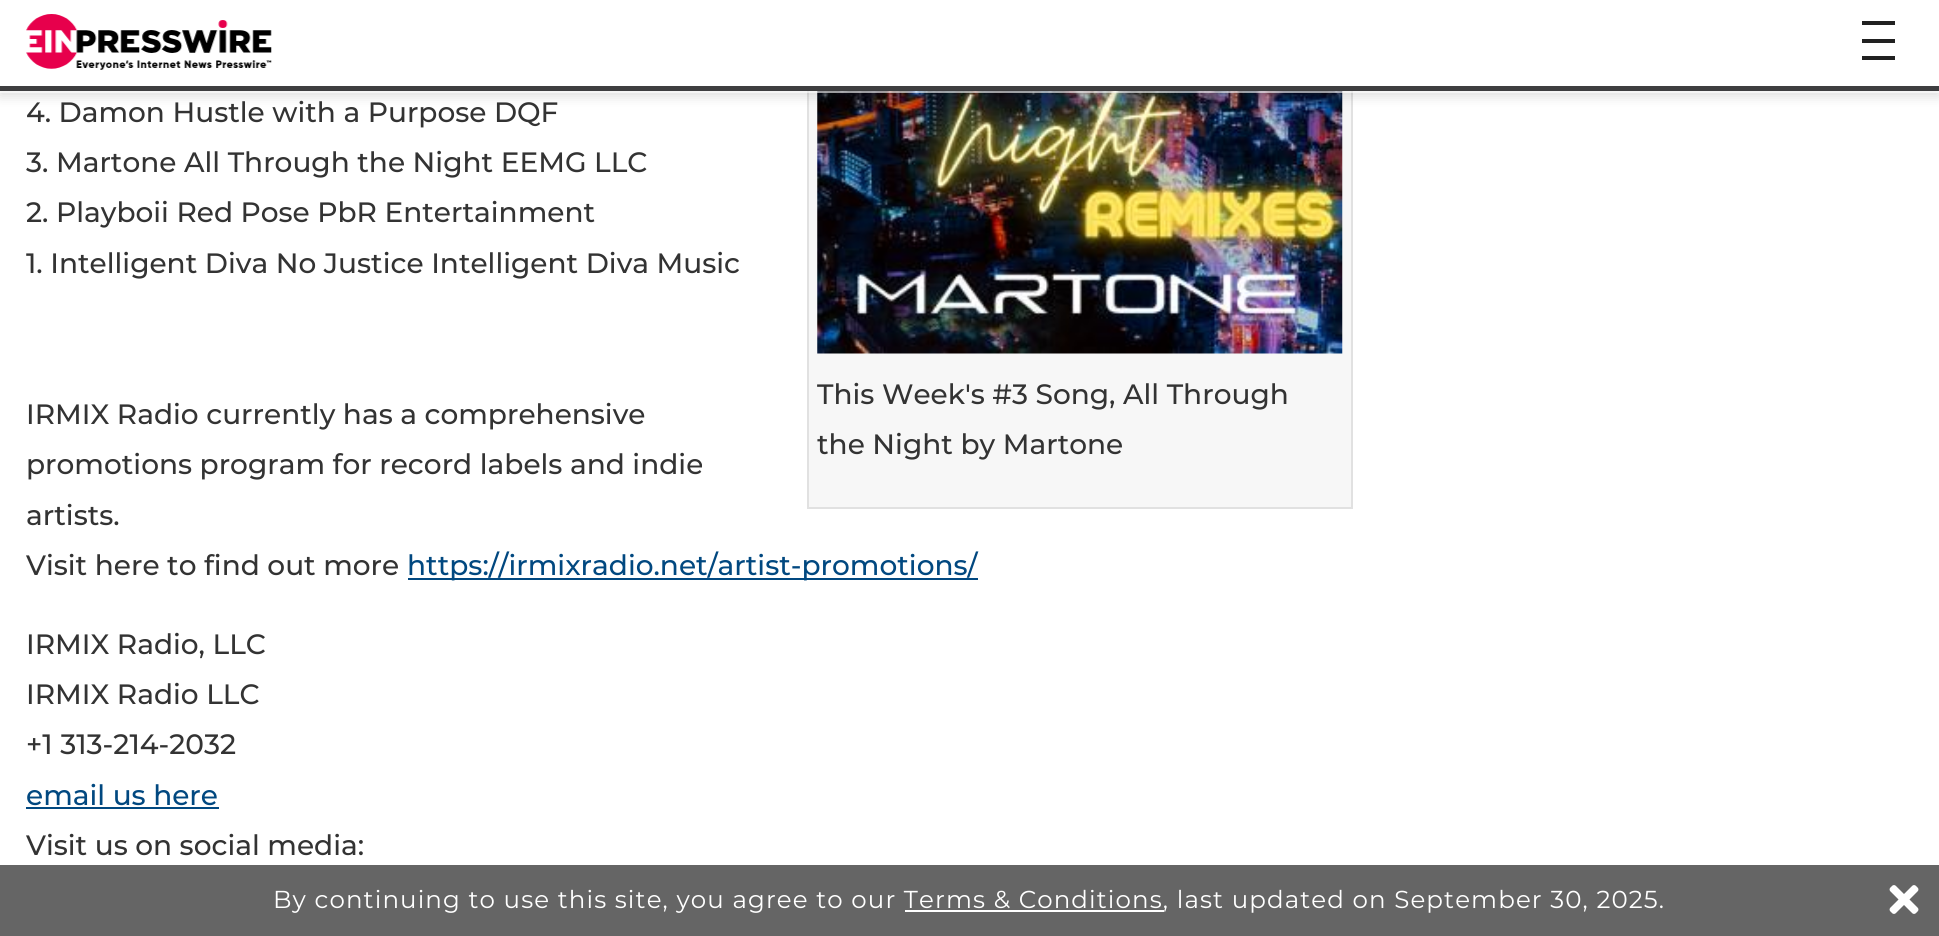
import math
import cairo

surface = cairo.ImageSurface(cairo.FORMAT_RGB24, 1939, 936)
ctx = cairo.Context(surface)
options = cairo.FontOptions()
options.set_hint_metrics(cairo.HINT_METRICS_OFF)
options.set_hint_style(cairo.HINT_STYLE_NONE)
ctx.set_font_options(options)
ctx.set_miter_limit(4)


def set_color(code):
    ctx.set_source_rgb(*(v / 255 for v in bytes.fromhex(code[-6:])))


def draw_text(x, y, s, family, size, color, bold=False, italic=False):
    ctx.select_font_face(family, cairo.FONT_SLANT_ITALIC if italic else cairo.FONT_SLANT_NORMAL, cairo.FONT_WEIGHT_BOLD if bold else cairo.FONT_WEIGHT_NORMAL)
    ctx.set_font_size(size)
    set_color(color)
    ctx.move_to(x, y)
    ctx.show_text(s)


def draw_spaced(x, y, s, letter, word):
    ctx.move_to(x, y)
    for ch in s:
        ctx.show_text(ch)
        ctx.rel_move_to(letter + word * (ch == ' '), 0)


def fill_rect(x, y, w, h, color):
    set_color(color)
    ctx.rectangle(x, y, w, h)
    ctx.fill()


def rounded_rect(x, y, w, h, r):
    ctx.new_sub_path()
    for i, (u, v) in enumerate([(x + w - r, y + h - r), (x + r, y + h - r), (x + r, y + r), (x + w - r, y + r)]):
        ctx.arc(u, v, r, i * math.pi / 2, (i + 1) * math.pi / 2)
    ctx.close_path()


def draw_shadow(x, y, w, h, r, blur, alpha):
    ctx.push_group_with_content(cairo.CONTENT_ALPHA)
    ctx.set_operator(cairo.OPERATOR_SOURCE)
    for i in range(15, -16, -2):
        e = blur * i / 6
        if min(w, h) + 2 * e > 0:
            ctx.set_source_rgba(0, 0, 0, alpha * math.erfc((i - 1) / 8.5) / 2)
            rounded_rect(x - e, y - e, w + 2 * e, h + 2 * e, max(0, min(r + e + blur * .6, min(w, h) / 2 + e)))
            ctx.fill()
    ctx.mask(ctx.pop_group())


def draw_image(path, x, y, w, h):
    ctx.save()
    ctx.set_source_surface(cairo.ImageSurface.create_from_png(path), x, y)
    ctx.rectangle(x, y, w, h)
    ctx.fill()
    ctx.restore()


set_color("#ffffff")
ctx.paint()
fill_rect(809, 91, 542, 416, "#f7f7f7")
ctx.rectangle(808, -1, 544, 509)
set_color("#e1e1e1")
ctx.stroke()
draw_image("assets/img2.png", 817, 91, 526, 263)
set_color("#212121")
draw_shadow(0, 5, 1939, 91, 0, 6, 0.16)
ctx.set_source_rgba(1, 1, 1, 0.6)
ctx.rectangle(0, 91, 1939, 2)
ctx.fill()
fill_rect(0, 0, 1939, 86, "#ffffff")
fill_rect(0, 86, 1939, 5, "#3e3e40")
draw_image("assets/img1.png", 26, 14, 246, 56)
fill_rect(1862, 21, 33, 4, "#212121")
fill_rect(1862, 39, 33, 4, "#212121")
fill_rect(1862, 56, 33, 4, "#212121")
draw_text(26, 122, "4. Damon Hustle with a Purpose DQF", "Montserrat Medium", 28, "#333333")
draw_text(26, 172, "3. Martone All Through the Night EEMG LLC", "Montserrat Medium", 28, "#333333")
draw_text(26, 222, "2. Playboii Red Pose PbR Entertainment", "Montserrat Medium", 28, "#333333")
draw_text(26, 273, "1. Intelligent Diva No Justice Intelligent Diva Music", "Montserrat Medium", 28, "#333333")
draw_text(26, 424, "IRMIX Radio currently has a comprehensive", "Montserrat Medium", 28, "#333333")
draw_text(817, 404, "This Week's #3 Song, All Through", "Montserrat Medium", 28, "#333333")
draw_text(817, 454, "the Night by Martone", "Montserrat Medium", 28, "#333333")
draw_text(26, 474, "promotions program for record labels and indie", "Montserrat Medium", 28, "#333333")
draw_text(26, 525, "artists.", "Montserrat Medium", 28, "#333333")
draw_text(26, 575, "Visit here to find out more", "Montserrat Medium", 28, "#333333")
fill_rect(408, 578, 570, 2, "#014880")
draw_text(407, 575, "https://irmixradio.net/artist-promotions/", "Montserrat Medium", 28, "#014880")
draw_text(26, 654, "IRMIX Radio, LLC", "Montserrat Medium", 28, "#333333")
draw_text(26, 704, "IRMIX Radio LLC", "Montserrat Medium", 28, "#333333")
draw_text(26, 754, "+1 313-214-2032", "Montserrat Medium", 28, "#333333")
draw_text(26, 805, "email us here", "Montserrat Medium", 28, "#014880")
fill_rect(26, 807, 193, 2, "#014880")
draw_text(26, 855, "Visit us on social media:", "Montserrat Medium", 28, "#333333")
fill_rect(0, 865, 1939, 71, "#656565")
ctx.select_font_face("Montserrat")
ctx.set_font_size(24.5)
set_color("#ffffff")
draw_spaced(273, 908, "By continuing to use this site, you agree to our Terms & Conditions, last updated on September 30, 2025.", 1.12, 0)
fill_rect(905, 910, 259, 2, "#ffffff")
draw_image("assets/img3.png", 1889, 885, 30, 29)
surface.write_to_png("output.png")
